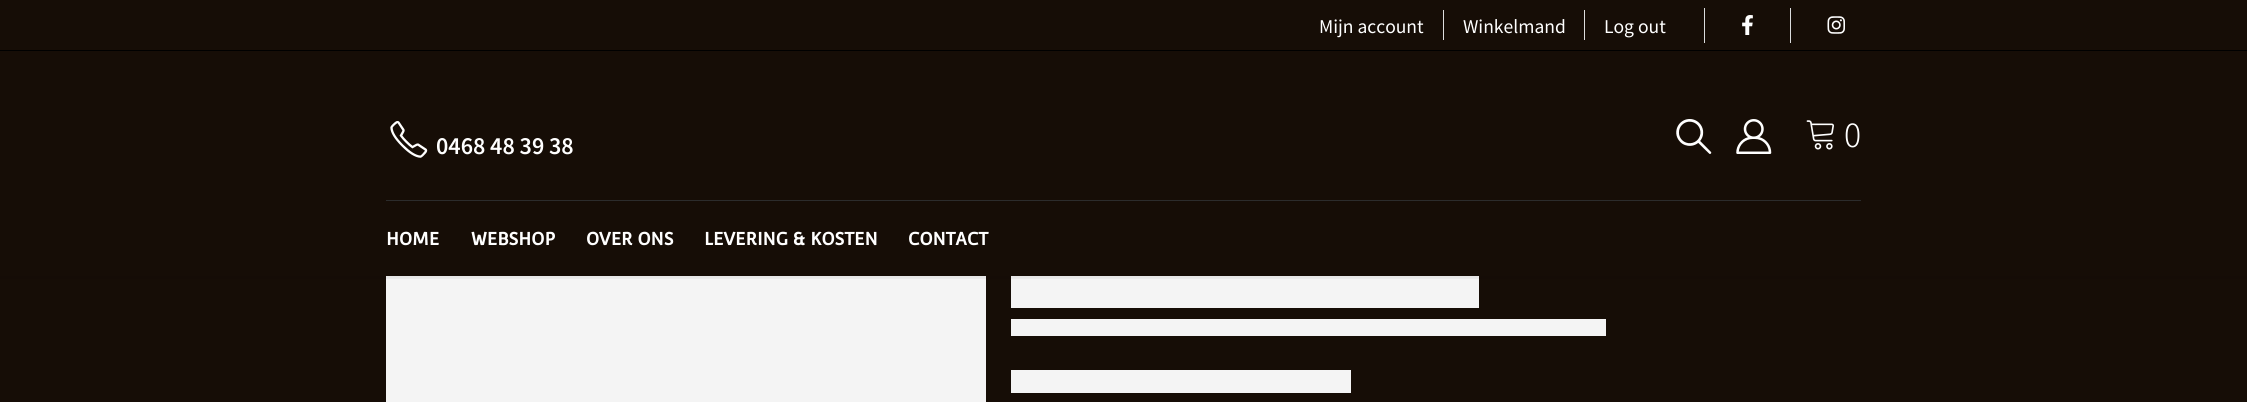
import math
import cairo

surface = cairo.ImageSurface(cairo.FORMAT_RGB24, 2247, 402)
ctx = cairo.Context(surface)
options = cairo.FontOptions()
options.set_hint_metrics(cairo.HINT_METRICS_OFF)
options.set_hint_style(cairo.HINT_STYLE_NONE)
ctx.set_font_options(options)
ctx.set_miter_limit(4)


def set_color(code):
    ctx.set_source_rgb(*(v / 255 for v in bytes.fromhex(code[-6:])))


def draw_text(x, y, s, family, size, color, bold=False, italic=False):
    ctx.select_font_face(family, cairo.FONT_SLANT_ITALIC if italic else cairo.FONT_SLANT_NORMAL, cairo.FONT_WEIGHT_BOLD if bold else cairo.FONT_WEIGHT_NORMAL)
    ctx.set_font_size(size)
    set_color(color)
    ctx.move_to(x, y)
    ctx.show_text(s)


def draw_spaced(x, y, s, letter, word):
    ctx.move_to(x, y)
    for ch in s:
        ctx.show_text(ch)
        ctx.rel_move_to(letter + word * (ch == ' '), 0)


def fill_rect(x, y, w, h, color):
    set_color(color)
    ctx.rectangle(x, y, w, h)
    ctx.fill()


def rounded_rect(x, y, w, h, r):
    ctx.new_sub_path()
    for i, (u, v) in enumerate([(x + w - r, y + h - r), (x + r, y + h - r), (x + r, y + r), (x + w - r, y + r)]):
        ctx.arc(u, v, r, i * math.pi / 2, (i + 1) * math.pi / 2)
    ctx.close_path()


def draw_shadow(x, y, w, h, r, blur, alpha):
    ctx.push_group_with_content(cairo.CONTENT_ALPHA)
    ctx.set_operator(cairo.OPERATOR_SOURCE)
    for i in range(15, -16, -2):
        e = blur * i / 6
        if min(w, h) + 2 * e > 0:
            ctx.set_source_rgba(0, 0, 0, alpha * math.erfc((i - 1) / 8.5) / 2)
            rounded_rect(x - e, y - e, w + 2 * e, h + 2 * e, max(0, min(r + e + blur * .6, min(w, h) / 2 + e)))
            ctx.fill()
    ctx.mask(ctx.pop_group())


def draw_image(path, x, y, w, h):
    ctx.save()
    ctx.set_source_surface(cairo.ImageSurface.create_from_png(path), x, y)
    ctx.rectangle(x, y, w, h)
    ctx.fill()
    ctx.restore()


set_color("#160d06")
ctx.paint()
fill_rect(386, 276, 600, 126, "#f4f4f4")
fill_rect(1011, 276, 468, 32, "#f4f4f4")
ctx.save()
ctx.rectangle(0, 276, 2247, 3)
ctx.clip()
set_color("#000000")
draw_shadow(0, 3, 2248, 276, 0, 1, 0.06)
ctx.restore()
fill_rect(0, 50, 2247, 1, "#000000")
draw_text(1319, 33, "Mijn account", "Noto Sans SC", 17.5, "#ffffff")
fill_rect(1443, 10, 1, 30, "#dddddd")
draw_text(1463, 33, "Winkelmand", "Noto Sans SC", 17.5, "#ffffff")
fill_rect(1584, 10, 1, 30, "#dddddd")
draw_text(1604, 33, "Log out", "Noto Sans SC", 17.5, "#ffffff")
fill_rect(1704, 8, 1, 35, "#dadcdd")
draw_image("assets/img1.png", 1742, 15, 11, 20)
fill_rect(1790, 8, 1, 35, "#dadcdd")
draw_image("assets/img2.png", 1827, 16, 18, 18)
draw_image("assets/img3.png", 390, 121, 38, 37)
draw_text(436, 154, "0468 48 39 38", "Noto Sans SC SemiBold", 21.25, "#ffffff")
draw_image("assets/img4.png", 1676, 119, 36, 35)
draw_image("assets/img5.png", 1736, 119, 36, 35)
draw_image("assets/img6.png", 1806, 120, 28, 30)
draw_text(1844, 147, "0", "Noto Sans SC Light", 32, "#ffffff")
fill_rect(386, 200, 1475, 1, "#2c2c2c")
ctx.select_font_face("Convergence", cairo.FONT_SLANT_NORMAL, cairo.FONT_WEIGHT_BOLD)
ctx.set_font_size(17.5)
set_color("#ffffff")
draw_spaced(386, 245, "HOME", -0.1, 0)
draw_spaced(471, 245, "WEBSHOP", -0.1, 0)
draw_spaced(586, 245, "OVER ONS", -0.1, 0)
draw_spaced(704, 245, "LEVERING & KOSTEN", -0.1, 0)
draw_spaced(908, 245, "CONTACT", -0.1, 0)
fill_rect(1011, 370, 340, 23, "#f4f4f4")
fill_rect(1011, 319, 595, 17, "#f4f4f4")
surface.write_to_png("output.png")
